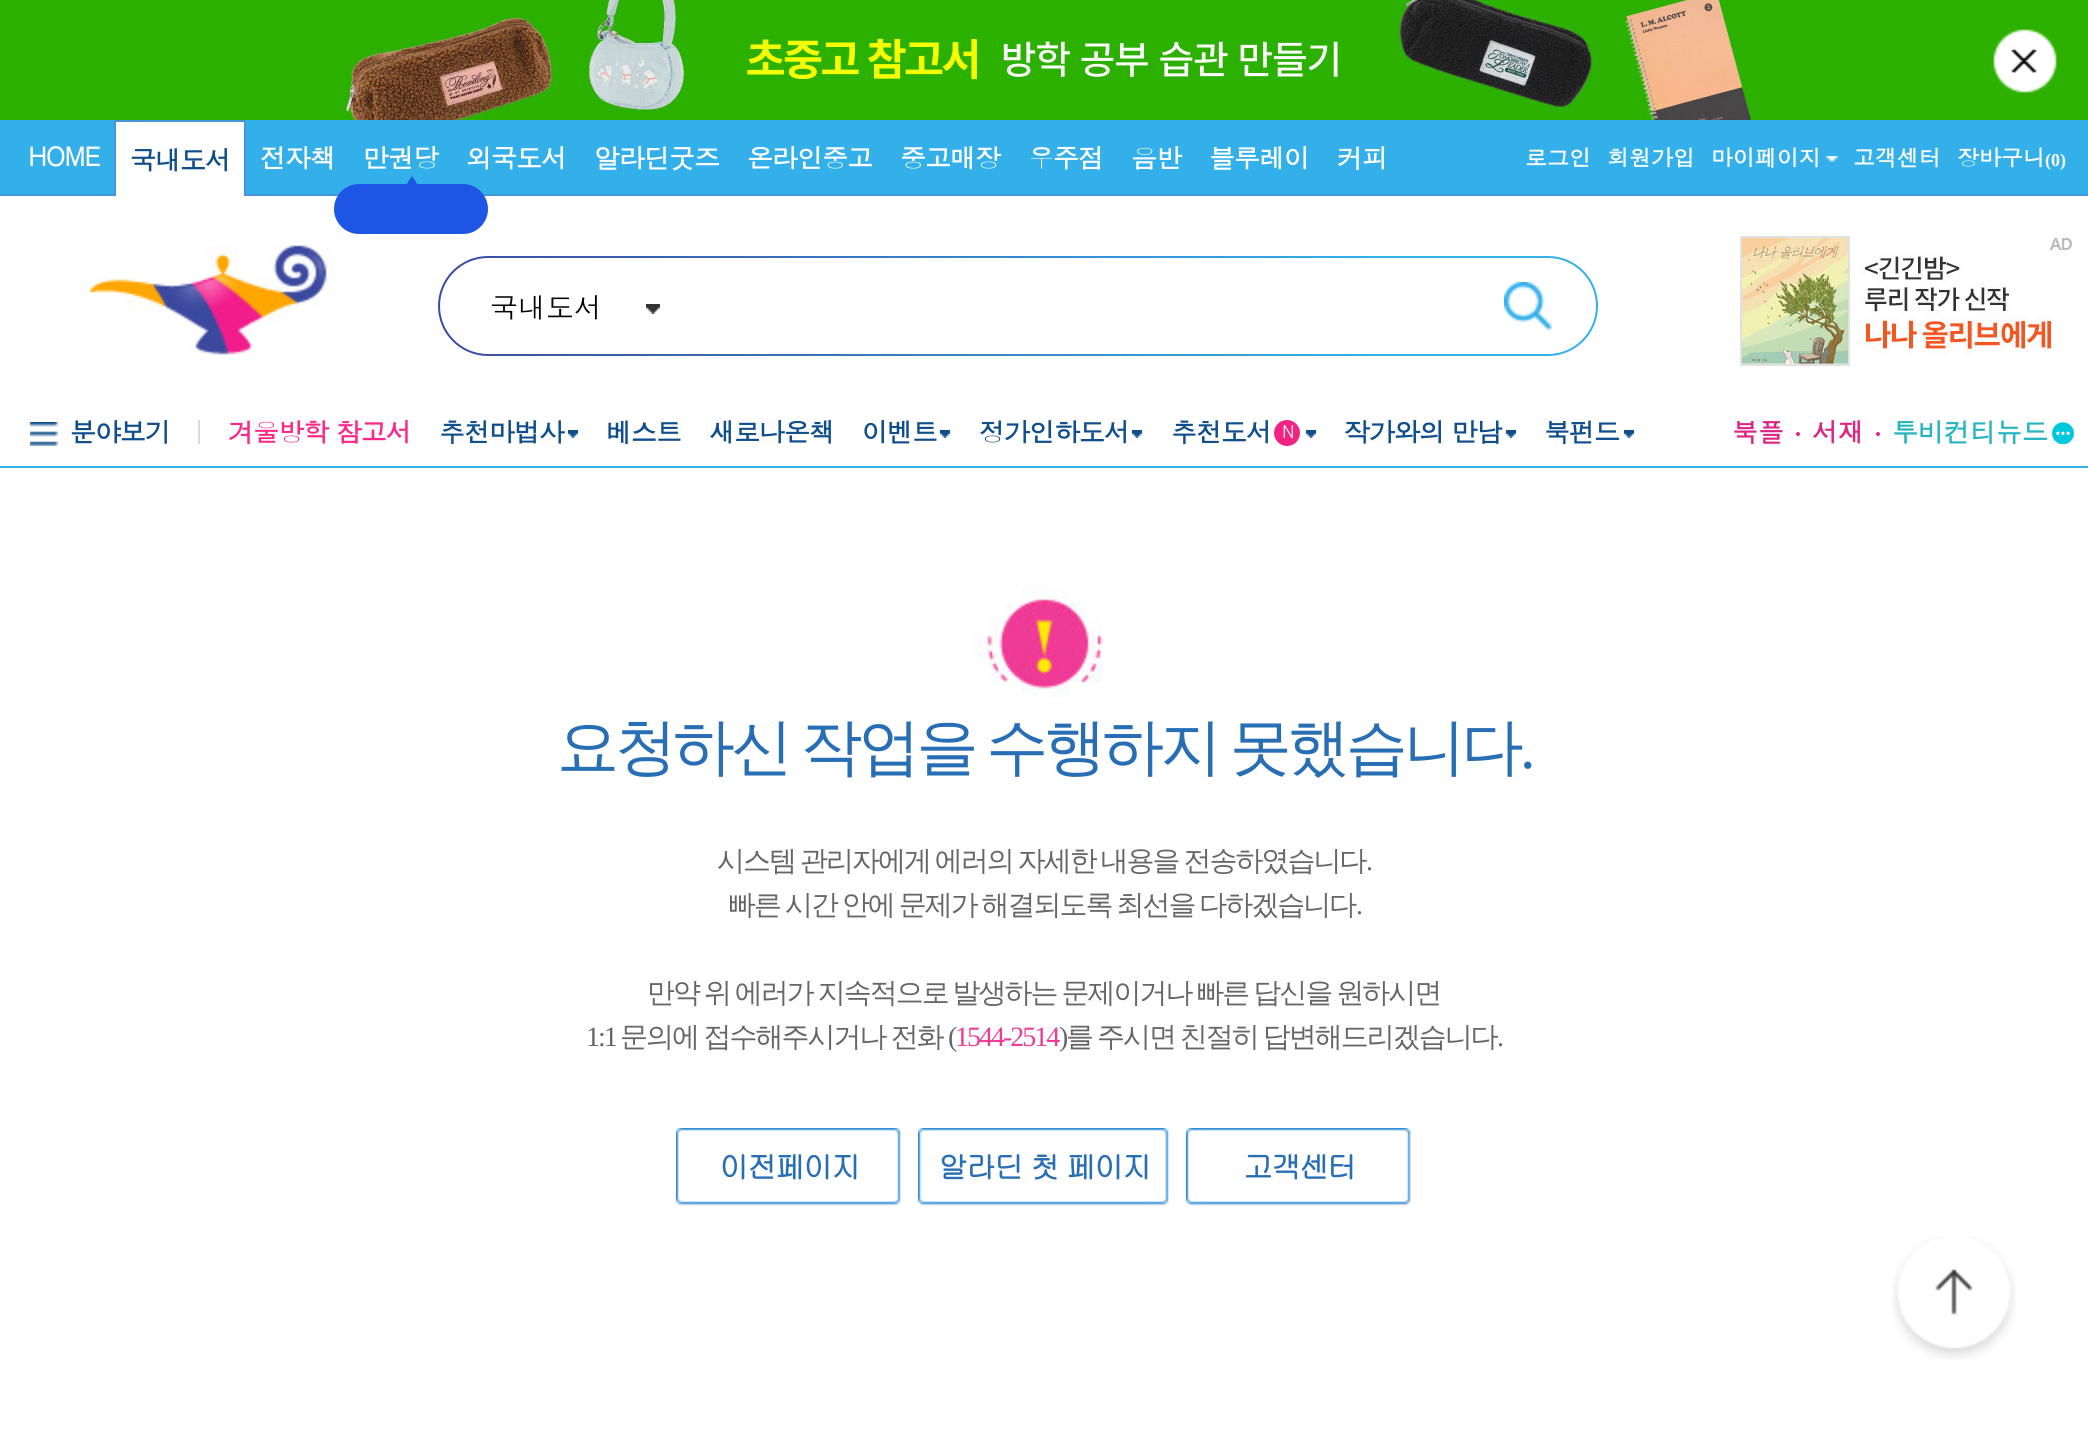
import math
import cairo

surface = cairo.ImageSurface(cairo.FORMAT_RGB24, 2088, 1451)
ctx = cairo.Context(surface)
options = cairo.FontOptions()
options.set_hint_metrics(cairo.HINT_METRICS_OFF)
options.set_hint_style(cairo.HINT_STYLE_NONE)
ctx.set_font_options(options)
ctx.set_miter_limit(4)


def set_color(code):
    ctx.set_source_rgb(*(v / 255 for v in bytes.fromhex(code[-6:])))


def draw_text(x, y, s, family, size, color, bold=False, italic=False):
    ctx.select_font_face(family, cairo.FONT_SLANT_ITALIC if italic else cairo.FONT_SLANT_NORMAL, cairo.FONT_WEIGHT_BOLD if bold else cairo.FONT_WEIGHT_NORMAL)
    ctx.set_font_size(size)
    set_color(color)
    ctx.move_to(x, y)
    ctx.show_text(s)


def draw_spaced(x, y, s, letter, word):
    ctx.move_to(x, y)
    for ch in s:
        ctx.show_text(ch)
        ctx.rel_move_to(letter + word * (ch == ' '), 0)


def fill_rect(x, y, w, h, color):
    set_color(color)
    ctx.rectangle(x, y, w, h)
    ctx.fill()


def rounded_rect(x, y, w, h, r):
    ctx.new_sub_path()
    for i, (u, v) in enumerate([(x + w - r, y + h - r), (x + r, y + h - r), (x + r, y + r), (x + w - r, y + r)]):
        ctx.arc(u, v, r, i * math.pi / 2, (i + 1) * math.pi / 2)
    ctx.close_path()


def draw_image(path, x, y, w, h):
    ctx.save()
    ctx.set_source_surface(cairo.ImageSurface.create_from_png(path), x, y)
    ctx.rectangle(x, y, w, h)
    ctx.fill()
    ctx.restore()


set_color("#ffffff")
ctx.paint()
fill_rect(0, 0, 2088, 120, "#2cb100")
draw_image("assets/img1.png", 346, 0, 1408, 120)
draw_image("assets/img2.png", 1993, 29, 64, 64)
fill_rect(0, 466, 2088, 2, "#33afe9")
fill_rect(0, 120, 2088, 74, "#33afe9")
fill_rect(0, 194, 2088, 2, "#4496d9")
ctx.select_font_face("Dotum", cairo.FONT_SLANT_NORMAL, cairo.FONT_WEIGHT_BOLD)
ctx.set_font_size(26)
set_color("#ffffff")
draw_spaced(28, 166, "HOME", -1, 0)
fill_rect(116, 122, 128, 74, "#ffffff")
fill_rect(114, 120, 132, 2, "#4496d9")
fill_rect(244, 120, 2, 76, "#4496d9")
fill_rect(114, 120, 2, 76, "#4496d9")
set_color("#0f4e8a")
draw_spaced(130, 170, "국내도서", -1, 0)
set_color("#ffffff")
draw_spaced(260, 168, "전자책", -1, 0)
draw_spaced(363, 168, "만권당", -1, 0)
set_color("#1d55e5")
rounded_rect(334, 184, 154, 50, 25)
ctx.fill()
ctx.new_path()
ctx.move_to(420, 188)
ctx.line_to(404, 188)
ctx.line_to(412, 176)
ctx.close_path()
ctx.fill()
set_color("#ffffff")
draw_spaced(466, 168, "외국도서", -1, 0)
draw_spaced(594, 168, "알라딘굿즈", -1, 0)
draw_spaced(747, 168, "온라인중고", -1, 0)
draw_spaced(900, 168, "중고매장", -1, 0)
draw_spaced(1028, 168, "우주점", -1, 0)
draw_spaced(1131, 168, "음반", -1, 0)
draw_spaced(1209, 168, "블루레이", -1, 0)
draw_spaced(1337, 168, "커피", -1, 0)
draw_text(1525, 166, "로그인", "Dotum", 22, "#ffffff", bold=True)
draw_text(1607, 166, "회원가입", "Dotum", 22, "#ffffff", bold=True)
draw_text(1711, 166, "마이페이지", "Dotum", 22, "#ffffff", bold=True)
draw_image("assets/img3.png", 1826, 156, 12, 6)
draw_text(1853, 166, "고객센터", "Dotum", 22, "#ffffff", bold=True)
draw_text(1957, 166, "장바구니", "Dotum", 22, "#ffffff", bold=True)
draw_text(2045, 166, "(0)", "Liberation Serif", 18, "#ffffff", bold=True)
draw_image("assets/img4.png", 78, 245, 256, 113)
gradient = cairo.LinearGradient(438, 306, 1598, 306)
gradient.add_color_stop_rgba(0, 0.235, 0.29, 0.631, 1)
gradient.add_color_stop_rgba(0.8, 0.2, 0.686, 0.914, 1)
ctx.set_source(gradient)
rounded_rect(438, 256, 1160, 100, 50)
ctx.fill()
set_color("#ffffff")
rounded_rect(440, 258, 1156, 96, 48)
ctx.fill()
draw_text(490, 318, "국내도서", "Dotum", 28, "#000000")
draw_image("assets/img5.png", 646, 304, 14, 10)
draw_image("assets/img6.png", 1504, 282, 48, 48)
draw_image("assets/img7.png", 1740, 236, 334, 130)
draw_image("assets/img8.png", 30, 422, 28, 24)
ctx.select_font_face("Dotum", cairo.FONT_SLANT_NORMAL, cairo.FONT_WEIGHT_BOLD)
ctx.set_font_size(26)
set_color("#0f4e8a")
draw_spaced(70, 442, "분야보기", -1, 0)
fill_rect(198, 420, 2, 24, "#ded9d9")
set_color("#fb2888")
draw_spaced(228, 442, "겨울방학 참고서", -1, 0)
set_color("#0f4e8a")
draw_spaced(439, 442, "추천마법사", -1, 0)
draw_image("assets/img9.png", 568, 430, 10, 8)
draw_spaced(606, 442, "베스트", -1, 0)
draw_spaced(709, 442, "새로나온책", -1, 0)
draw_spaced(862, 442, "이벤트", -1, 0)
draw_image("assets/img9.png", 940, 430, 10, 8)
draw_spaced(979, 442, "정가인하도서", -1, 0)
draw_image("assets/img9.png", 1132, 430, 10, 8)
draw_spaced(1171, 442, "추천도서", -1, 0)
set_color("#f32383")
ctx.new_path()
ctx.arc(1287, 433, 13, 0, 2 * math.pi)
ctx.fill()
ctx.select_font_face("Dotum")
ctx.set_font_size(18)
set_color("#ffffff")
draw_spaced(1282, 438, "N", -1, 0)
draw_image("assets/img9.png", 1306, 430, 10, 8)
ctx.select_font_face("Dotum", cairo.FONT_SLANT_NORMAL, cairo.FONT_WEIGHT_BOLD)
ctx.set_font_size(26)
set_color("#0f4e8a")
draw_spaced(1344, 442, "작가와의 만남", -1, 0)
draw_image("assets/img9.png", 1506, 430, 10, 8)
draw_spaced(1544, 442, "북펀드", -1, 0)
draw_image("assets/img9.png", 1624, 430, 10, 8)
draw_text(1732, 442, "북플", "Dotum", 26, "#dd2483", bold=True)
ctx.new_path()
ctx.arc(1798, 434, 2, 0, 2 * math.pi)
ctx.fill()
draw_text(1812, 442, "서재", "Dotum", 26, "#dd2483", bold=True)
ctx.new_path()
ctx.arc(1878, 434, 2, 0, 2 * math.pi)
ctx.fill()
draw_text(1892, 442, "투비컨티뉴드", "Dotum", 26, "#26b5bf", bold=True)
draw_image("assets/img10.png", 2052, 422, 22, 22)
draw_image("assets/img11.png", 974, 586, 129, 112)
ctx.select_font_face("WenQuanYi Zen Hei Medium")
ctx.set_font_size(62)
set_color("#276eb4")
draw_spaced(557, 768, "요청하신 작업을 수행하지 못했습니다", -4, -3)
ctx.select_font_face("Liberation Serif")
draw_spaced(1520, 768, ".", -4, 0)
ctx.select_font_face("WenQuanYi Zen Hei Medium")
ctx.set_font_size(28)
set_color("#666666")
draw_spaced(717, 870, "시스템 관리자에게 에러의 자세한 내용을 전송하였습니다", -2, -1.5)
ctx.select_font_face("Liberation Serif")
draw_spaced(1366, 870, ".", -2, 0)
ctx.select_font_face("WenQuanYi Zen Hei Medium")
draw_spaced(728, 914, "빠른 시간 안에 문제가 해결되도록 최선을 다하겠습니다", -2, -1.5)
ctx.select_font_face("Liberation Serif")
draw_spaced(1356, 914, ".", -2, 0)
ctx.select_font_face("WenQuanYi Zen Hei Medium")
draw_spaced(647, 1002, "만약 위 에러가 지속적으로 발생하는 문제이거나 빠른 답신을 원하시면", -2, -1.5)
ctx.select_font_face("Liberation Serif")
draw_spaced(586, 1046, "1:1", -2, 0)
ctx.select_font_face("WenQuanYi Zen Hei Medium")
draw_spaced(620, 1046, "문의에 접수해주시거나 전화", -2, -1)
ctx.select_font_face("Liberation Serif")
draw_spaced(948, 1046, "(", -2, 0)
set_color("#ef3b96")
draw_spaced(955, 1046, "1544-2514", -2, 0)
set_color("#666666")
draw_spaced(1059, 1046, ")", -2, 0)
ctx.select_font_face("WenQuanYi Zen Hei Medium")
draw_spaced(1066, 1046, "를 주시면 친절히 답변해드리겠습니다", -2, -1.5)
ctx.select_font_face("Liberation Serif")
draw_spaced(1497, 1046, ".", -2, 0)
draw_image("assets/img12.png", 676, 1128, 20, 78)
draw_image("assets/img13.png", 696, 1128, 186, 78)
ctx.select_font_face("Gulim", cairo.FONT_SLANT_NORMAL, cairo.FONT_WEIGHT_BOLD)
ctx.set_font_size(30)
set_color("#276eb4")
draw_spaced(719, 1178, "이전페이지", -2, 0)
draw_image("assets/img14.png", 882, 1128, 19, 78)
draw_image("assets/img12.png", 918, 1128, 20, 78)
draw_image("assets/img15.png", 938, 1128, 212, 78)
draw_spaced(938, 1178, "알라딘 첫 페이지", -2, 0)
draw_image("assets/img14.png", 1150, 1128, 19, 78)
draw_image("assets/img12.png", 1186, 1128, 20, 78)
draw_image("assets/img13.png", 1206, 1128, 186, 78)
draw_spaced(1243, 1178, "고객센터", -2, 0)
draw_image("assets/img14.png", 1392, 1128, 19, 78)
draw_image("assets/img16.png", 1892, 1235, 124, 125)
surface.write_to_png("output.png")
